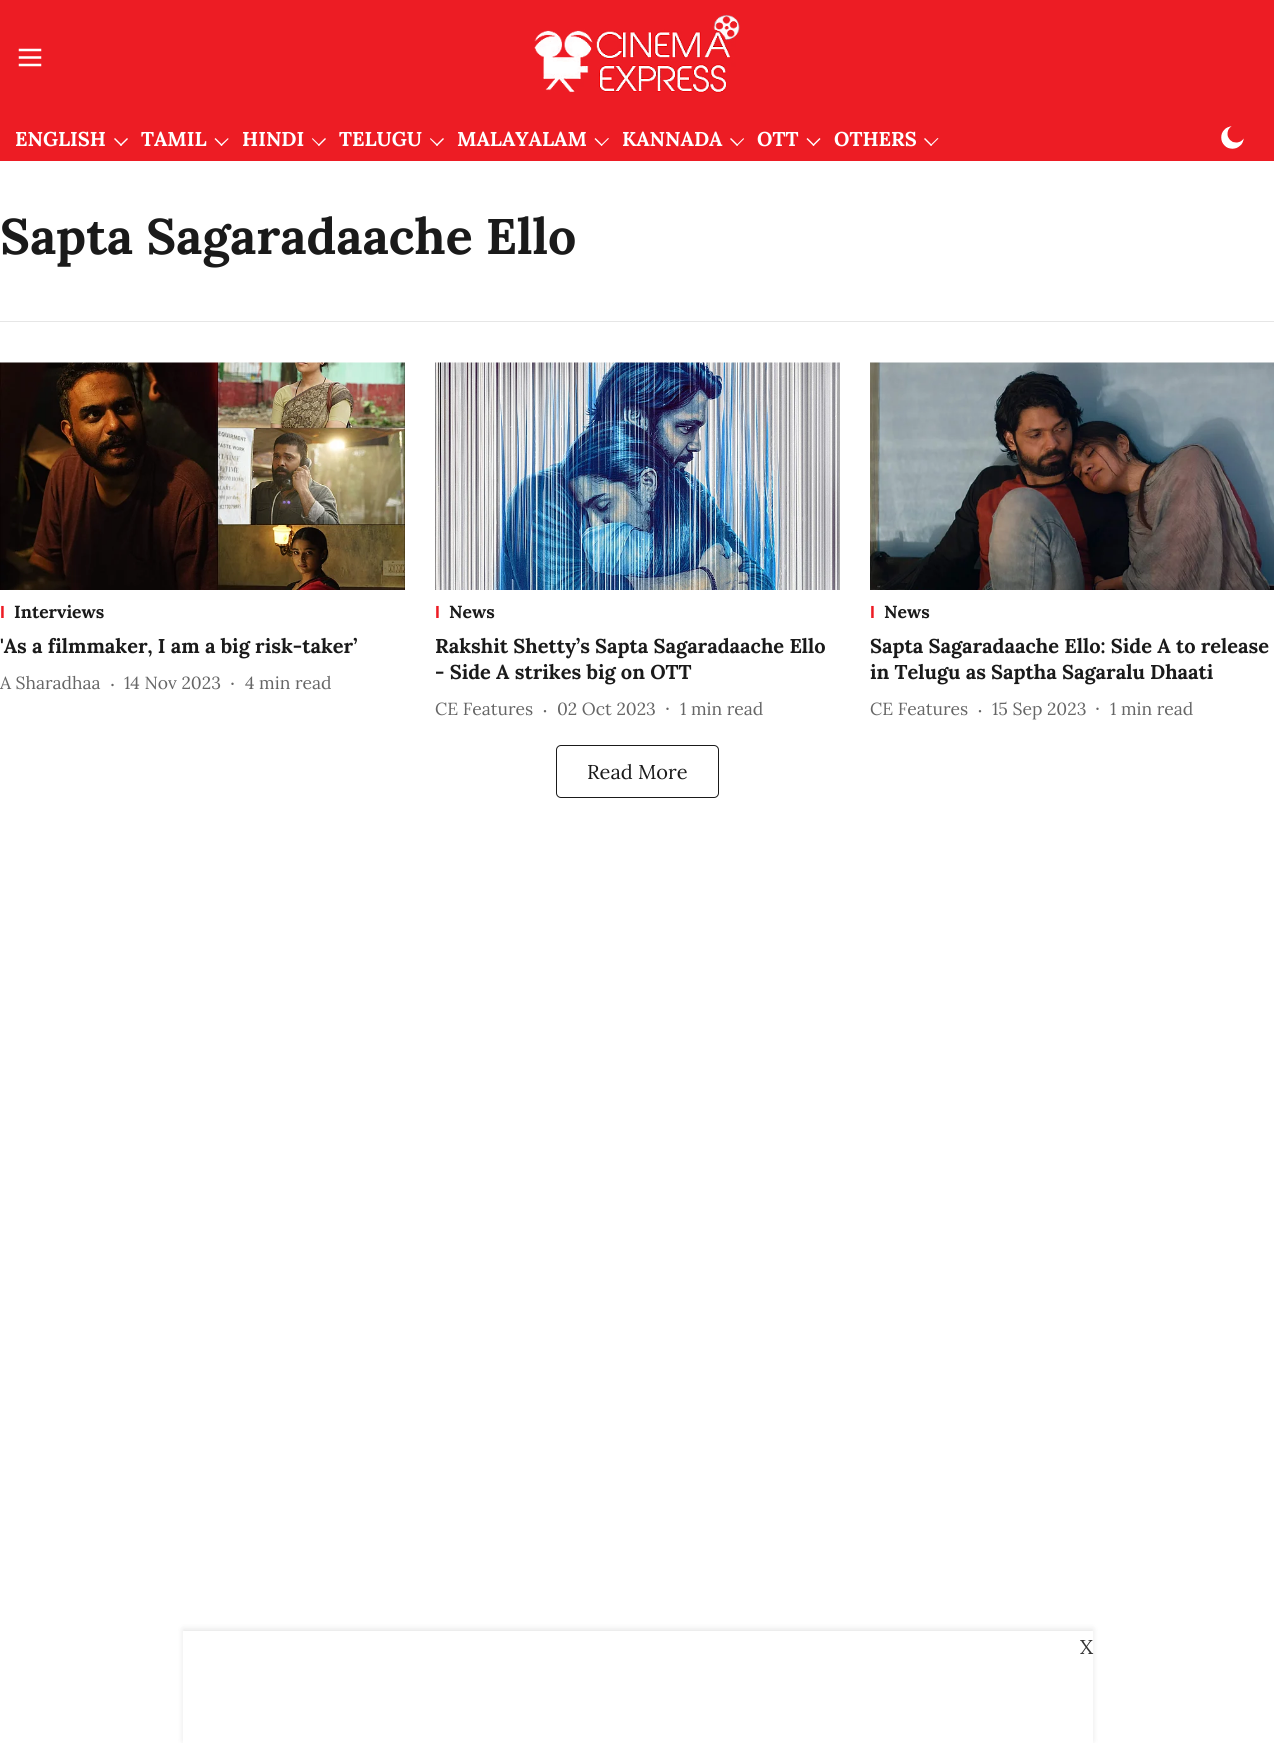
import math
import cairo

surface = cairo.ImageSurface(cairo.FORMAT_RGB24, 1274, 1743)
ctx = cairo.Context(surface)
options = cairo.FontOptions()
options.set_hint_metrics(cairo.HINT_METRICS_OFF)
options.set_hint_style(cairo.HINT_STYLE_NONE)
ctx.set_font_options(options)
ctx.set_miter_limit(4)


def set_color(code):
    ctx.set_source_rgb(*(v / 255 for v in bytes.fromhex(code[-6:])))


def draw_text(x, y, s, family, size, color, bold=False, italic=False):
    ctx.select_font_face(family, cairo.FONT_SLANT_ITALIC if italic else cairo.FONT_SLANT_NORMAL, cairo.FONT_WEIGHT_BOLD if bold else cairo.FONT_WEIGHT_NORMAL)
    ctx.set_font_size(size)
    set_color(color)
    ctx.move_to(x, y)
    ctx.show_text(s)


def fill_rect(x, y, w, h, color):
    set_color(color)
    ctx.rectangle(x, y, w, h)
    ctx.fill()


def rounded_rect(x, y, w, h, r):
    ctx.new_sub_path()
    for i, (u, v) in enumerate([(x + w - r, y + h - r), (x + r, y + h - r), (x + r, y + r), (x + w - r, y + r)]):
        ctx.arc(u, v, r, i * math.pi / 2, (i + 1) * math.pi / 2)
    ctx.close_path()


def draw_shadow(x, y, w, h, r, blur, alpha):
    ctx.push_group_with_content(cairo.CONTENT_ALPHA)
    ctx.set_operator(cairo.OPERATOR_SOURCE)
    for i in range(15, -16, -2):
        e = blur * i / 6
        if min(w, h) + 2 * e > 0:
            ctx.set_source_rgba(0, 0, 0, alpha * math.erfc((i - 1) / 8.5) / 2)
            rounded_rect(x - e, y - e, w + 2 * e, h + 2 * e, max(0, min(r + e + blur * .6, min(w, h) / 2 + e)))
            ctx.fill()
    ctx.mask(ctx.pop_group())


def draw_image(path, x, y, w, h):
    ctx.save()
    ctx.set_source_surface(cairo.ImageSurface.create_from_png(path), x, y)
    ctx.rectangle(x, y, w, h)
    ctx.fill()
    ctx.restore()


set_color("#ffffff")
ctx.paint()
fill_rect(0, 0, 1274, 161, "#ed1c24")
draw_image("assets/img1.png", 18, 48, 24, 19)
draw_image("assets/img2.png", 534, 14, 206, 79)
draw_text(15, 146, "ENGLISH", "Lora", 20, "#ffffff", bold=True)
ctx.new_path()
ctx.move_to(127, 138)
ctx.line_to(128, 139)
ctx.line_to(121, 146)
ctx.line_to(120, 145)
ctx.close_path()
ctx.fill()
ctx.new_path()
ctx.move_to(115, 138)
ctx.line_to(122, 145)
ctx.line_to(121, 146)
ctx.line_to(114, 139)
ctx.close_path()
ctx.fill()
draw_text(141, 146, "TAMIL", "Lora", 20, "#ffffff", bold=True)
ctx.new_path()
ctx.move_to(228, 138)
ctx.line_to(228.5, 139)
ctx.line_to(221.5, 146)
ctx.line_to(220.5, 145)
ctx.close_path()
ctx.fill()
ctx.new_path()
ctx.move_to(215.5, 138)
ctx.line_to(222.5, 145)
ctx.line_to(221.5, 146)
ctx.line_to(214.5, 139)
ctx.close_path()
ctx.fill()
draw_text(242, 146, "HINDI", "Lora", 20, "#ffffff", bold=True)
ctx.new_path()
ctx.move_to(325, 138)
ctx.line_to(326, 139)
ctx.line_to(319, 146)
ctx.line_to(318, 145)
ctx.close_path()
ctx.fill()
ctx.new_path()
ctx.move_to(312.5, 138)
ctx.line_to(319.5, 145)
ctx.line_to(319, 146)
ctx.line_to(312, 139)
ctx.close_path()
ctx.fill()
draw_text(339, 146, "TELUGU", "Lora", 20, "#ffffff", bold=True)
ctx.new_path()
ctx.move_to(443, 138)
ctx.line_to(444, 139)
ctx.line_to(437, 146)
ctx.line_to(436, 145)
ctx.close_path()
ctx.fill()
ctx.new_path()
ctx.move_to(430.5, 138)
ctx.line_to(438, 145)
ctx.line_to(437, 146)
ctx.line_to(430, 139)
ctx.close_path()
ctx.fill()
draw_text(457, 146, "MALAYALAM", "Lora", 20, "#ffffff", bold=True)
ctx.new_path()
ctx.move_to(608, 138)
ctx.line_to(609, 138.5)
ctx.line_to(601.5, 146)
ctx.line_to(601, 145)
ctx.close_path()
ctx.fill()
ctx.new_path()
ctx.move_to(595.5, 138)
ctx.line_to(602.5, 145)
ctx.line_to(601.5, 146)
ctx.line_to(594.5, 139)
ctx.close_path()
ctx.fill()
draw_text(622, 146, "KANNADA", "Lora", 20, "#ffffff", bold=True)
ctx.new_path()
ctx.move_to(743.5, 138)
ctx.line_to(744, 139)
ctx.line_to(737, 146)
ctx.line_to(736.5, 145)
ctx.close_path()
ctx.fill()
ctx.new_path()
ctx.move_to(731, 138)
ctx.line_to(738, 145)
ctx.line_to(737, 146)
ctx.line_to(730, 139)
ctx.close_path()
ctx.fill()
draw_text(757, 146, "OTT", "Lora", 20, "#ffffff", bold=True)
ctx.new_path()
ctx.move_to(819.5, 138)
ctx.line_to(820.5, 139)
ctx.line_to(813.5, 146)
ctx.line_to(812.5, 145)
ctx.close_path()
ctx.fill()
ctx.new_path()
ctx.move_to(807.5, 138)
ctx.line_to(814.5, 145)
ctx.line_to(813.5, 146)
ctx.line_to(806.5, 139)
ctx.close_path()
ctx.fill()
draw_text(834, 146, "OTHERS", "Lora", 20, "#ffffff", bold=True)
ctx.new_path()
ctx.move_to(937.5, 138)
ctx.line_to(938.5, 138.5)
ctx.line_to(931, 146)
ctx.line_to(930.5, 145)
ctx.close_path()
ctx.fill()
ctx.new_path()
ctx.move_to(925, 138)
ctx.line_to(932, 145)
ctx.line_to(931, 146)
ctx.line_to(924, 139)
ctx.close_path()
ctx.fill()
draw_image("assets/img3.png", 1221, 126, 23, 23)
fill_rect(0, 321, 1274, 1, "#e6e6e6")
draw_text(0, 254, "Sapta Sagaradaache Ello", "Lora", 50, "#1a1a1a", bold=True)
draw_image("assets/img4.png", 0, 362, 405, 228)
draw_text(0, 618, "I", "Liberation Sans", 17.5, "#ed1c24", bold=True)
draw_text(14, 618, "Interviews", "Lora", 17.5, "#1a1a1a", bold=True)
draw_text(0, 653, "'As a filmmaker, I am a big risk-taker’", "Lora", 20, "#1a1a1a", bold=True)
draw_text(0, 689, "A Sharadhaa", "Lora", 17.5, "#666666")
ctx.new_path()
ctx.arc(112.5, 685, 1.2, 0, 2 * math.pi)
ctx.fill()
draw_text(124, 689, "14 Nov 2023", "Lora", 17.5, "#666666")
ctx.new_path()
ctx.arc(232.5, 683.8, 1.2, 0, 2 * math.pi)
ctx.fill()
draw_text(245, 689, "4 min read", "Lora", 17.5, "#666666")
draw_image("assets/img5.png", 435, 362, 405, 228)
draw_text(435, 618, "I", "Liberation Sans", 17.5, "#ed1c24", bold=True)
draw_text(449, 618, "News", "Lora", 17.5, "#1a1a1a", bold=True)
draw_text(435, 653, "Rakshit Shetty’s Sapta Sagaradaache Ello", "Lora", 20, "#1a1a1a", bold=True)
draw_text(435, 679, "- Side A strikes big on OTT", "Lora", 20, "#1a1a1a", bold=True)
draw_text(435, 715, "CE Features", "Lora", 17.5, "#666666")
ctx.new_path()
ctx.arc(545, 711.2, 1.2, 0, 2 * math.pi)
ctx.fill()
draw_text(557, 715, "02 Oct 2023", "Lora", 17.5, "#666666")
ctx.new_path()
ctx.arc(667.5, 708.8, 1.2, 0, 2 * math.pi)
ctx.fill()
draw_text(680, 715, "1 min read", "Lora", 17.5, "#666666")
draw_image("assets/img6.png", 870, 362, 404, 228)
draw_text(870, 618, "I", "Liberation Sans", 17.5, "#ed1c24", bold=True)
draw_text(884, 618, "News", "Lora", 17.5, "#1a1a1a", bold=True)
draw_text(870, 653, "Sapta Sagaradaache Ello: Side A to release", "Lora", 20, "#1a1a1a", bold=True)
draw_text(870, 679, "in Telugu as Saptha Sagaralu Dhaati", "Lora", 20, "#1a1a1a", bold=True)
draw_text(870, 715, "CE Features", "Lora", 17.5, "#666666")
ctx.new_path()
ctx.arc(980, 711.2, 1.2, 0, 2 * math.pi)
ctx.fill()
draw_text(992, 715, "15 Sep 2023", "Lora", 17.5, "#666666")
ctx.new_path()
ctx.arc(1097.5, 708.8, 1.2, 0, 2 * math.pi)
ctx.fill()
draw_text(1110, 715, "1 min read", "Lora", 17.5, "#666666")
rounded_rect(556.5, 745.5, 162, 52, 4.5)
set_color("#1a1a1a")
ctx.set_line_width(1)
ctx.stroke()
draw_text(587, 779, "Read More", "Lora", 20, "#1a1a1a")
ctx.save()
ctx.set_fill_rule(cairo.FILL_RULE_EVEN_ODD)
ctx.new_path()
ctx.move_to(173, 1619)
ctx.line_to(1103, 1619)
ctx.line_to(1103, 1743)
ctx.line_to(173, 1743)
ctx.close_path()
ctx.move_to(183, 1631)
ctx.line_to(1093, 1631)
ctx.line_to(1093, 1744)
ctx.line_to(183, 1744)
ctx.close_path()
ctx.clip()
set_color("#000000")
draw_shadow(183, 1629, 910, 112, 0, 3, 0.1)
ctx.restore()
draw_text(1080, 1654, "X", "Lora", 20, "#333333")
surface.write_to_png("output.png")
